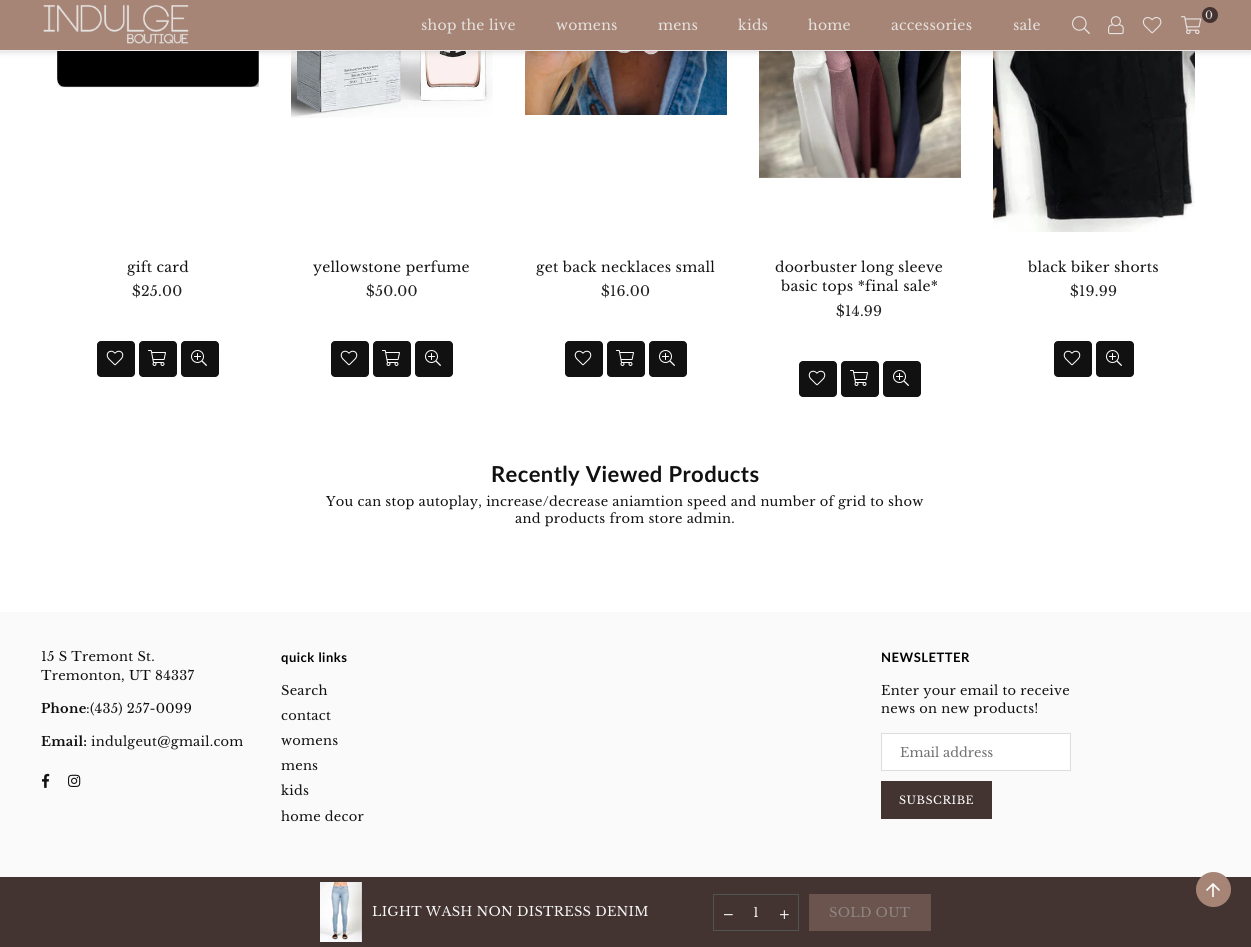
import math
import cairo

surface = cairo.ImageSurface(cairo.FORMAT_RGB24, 1251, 947)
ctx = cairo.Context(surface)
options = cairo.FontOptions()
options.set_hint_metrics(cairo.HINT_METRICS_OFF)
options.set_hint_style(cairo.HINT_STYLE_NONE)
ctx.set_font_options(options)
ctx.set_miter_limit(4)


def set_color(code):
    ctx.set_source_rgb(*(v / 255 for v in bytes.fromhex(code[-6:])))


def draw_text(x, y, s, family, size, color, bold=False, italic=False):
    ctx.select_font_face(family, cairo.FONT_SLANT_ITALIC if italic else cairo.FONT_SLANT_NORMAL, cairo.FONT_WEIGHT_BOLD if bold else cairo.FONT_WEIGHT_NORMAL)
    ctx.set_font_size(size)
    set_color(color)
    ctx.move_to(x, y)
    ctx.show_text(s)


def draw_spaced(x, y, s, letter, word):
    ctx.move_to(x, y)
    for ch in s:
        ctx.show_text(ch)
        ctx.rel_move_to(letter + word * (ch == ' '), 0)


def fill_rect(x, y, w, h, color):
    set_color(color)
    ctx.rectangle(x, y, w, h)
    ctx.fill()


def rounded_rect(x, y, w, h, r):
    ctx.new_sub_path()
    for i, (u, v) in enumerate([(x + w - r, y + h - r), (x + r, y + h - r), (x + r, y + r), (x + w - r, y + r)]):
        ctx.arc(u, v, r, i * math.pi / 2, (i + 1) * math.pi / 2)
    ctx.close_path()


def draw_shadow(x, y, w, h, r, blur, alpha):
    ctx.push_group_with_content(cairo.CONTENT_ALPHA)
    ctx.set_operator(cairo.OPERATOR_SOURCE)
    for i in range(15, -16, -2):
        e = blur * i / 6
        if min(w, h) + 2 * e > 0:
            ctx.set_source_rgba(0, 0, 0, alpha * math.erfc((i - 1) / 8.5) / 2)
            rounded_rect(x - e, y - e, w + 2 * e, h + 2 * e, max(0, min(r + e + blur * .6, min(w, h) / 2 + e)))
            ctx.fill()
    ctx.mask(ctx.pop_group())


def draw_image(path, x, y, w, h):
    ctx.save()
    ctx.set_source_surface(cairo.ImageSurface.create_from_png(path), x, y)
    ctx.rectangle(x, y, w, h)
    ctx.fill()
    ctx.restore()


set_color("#ffffff")
ctx.paint()
draw_image("assets/img6.png", 57, 51, 202, 37)
draw_image("assets/img10.png", 291, 51, 202, 67)
draw_image("assets/img11.png", 525, 51, 202, 64)
draw_image("assets/img12.png", 759, 51, 202, 127)
draw_image("assets/img13.png", 993, 51, 202, 181)
set_color("#000000")
draw_shadow(0, 0, 1251, 51, 0, 3.5, 0.2)
fill_rect(0, 0, 1251, 50, "#a68577")
fill_rect(0, 50, 1251, 1, "#eeeeee")
draw_image("assets/img1.png", 43, 5, 146, 39)
set_color("#433431")
ctx.arc(1210, 15, 8, 0, 2 * math.pi)
ctx.fill()
ctx.select_font_face("Libre Baskerville")
ctx.set_font_size(11)
set_color("#e6e2df")
draw_spaced(1205, 19, "0", 0.25, 0)
draw_image("assets/img2.png", 1181, 16, 21, 19)
draw_image("assets/img3.png", 1072, 16, 18, 18)
draw_image("assets/img4.png", 1108, 16, 16, 19)
draw_image("assets/img5.png", 1142, 17, 20, 17)
ctx.set_font_size(14)
draw_spaced(421, 30, "shop the live", 0.25, 0)
draw_spaced(556, 30, "womens", 0.25, 0)
draw_spaced(658, 30, "mens", 0.25, 0)
draw_spaced(738, 30, "kids", 0.25, 0)
draw_spaced(808, 30, "home", 0.25, 0)
draw_spaced(891, 30, "accessories", 0.25, 0)
draw_spaced(1013, 30, "sale", 0.25, 0)
set_color("#111111")
draw_spaced(127, 272, "gift card", 0.25, 0)
set_color("#222222")
draw_spaced(132, 296, "$25.00", 0.25, 0)
set_color("#111111")
rounded_rect(97, 341, 38, 36, 4)
ctx.fill()
draw_image("assets/img7.png", 106, 350, 18, 16)
rounded_rect(139, 341, 38, 36, 4)
ctx.fill()
draw_image("assets/img8.png", 148, 350, 18, 16)
rounded_rect(181, 341, 38, 36, 4)
ctx.fill()
draw_image("assets/img9.png", 191, 350, 16, 16)
draw_spaced(313, 272, "yellowstone perfume", 0.25, 0)
set_color("#222222")
draw_spaced(366, 296, "$50.00", 0.25, 0)
set_color("#111111")
rounded_rect(331, 341, 38, 36, 4)
ctx.fill()
draw_image("assets/img7.png", 340, 350, 18, 16)
rounded_rect(373, 341, 38, 36, 4)
ctx.fill()
draw_image("assets/img8.png", 382, 350, 18, 16)
rounded_rect(415, 341, 38, 36, 4)
ctx.fill()
draw_image("assets/img9.png", 425, 350, 16, 16)
draw_spaced(536, 272, "get back necklaces small", 0.25, 0)
set_color("#222222")
draw_spaced(601, 296, "$16.00", 0.25, 0)
set_color("#111111")
rounded_rect(565, 341, 38, 36, 4)
ctx.fill()
draw_image("assets/img7.png", 574, 350, 18, 16)
rounded_rect(607, 341, 38, 36, 4)
ctx.fill()
draw_image("assets/img8.png", 616, 350, 18, 16)
rounded_rect(649, 341, 38, 36, 4)
ctx.fill()
draw_image("assets/img9.png", 659, 350, 16, 16)
draw_spaced(775, 272, "doorbuster long sleeve", 0.25, 0)
draw_spaced(781, 291, "basic tops *final sale*", 0.25, 0)
set_color("#222222")
draw_spaced(836, 316, "$14.99", 0.25, 0)
set_color("#111111")
rounded_rect(799, 361, 38, 36, 4)
ctx.fill()
draw_image("assets/img7.png", 808, 370, 18, 16)
rounded_rect(841, 361, 38, 36, 4)
ctx.fill()
draw_image("assets/img8.png", 850, 370, 18, 16)
rounded_rect(883, 361, 38, 36, 4)
ctx.fill()
draw_image("assets/img9.png", 893, 370, 16, 16)
draw_spaced(1028, 272, "black biker shorts", 0.25, 0)
set_color("#222222")
draw_spaced(1070, 296, "$19.99", 0.25, 0)
set_color("#111111")
rounded_rect(1054, 341, 38, 36, 4)
ctx.fill()
draw_image("assets/img7.png", 1063, 350, 18, 16)
rounded_rect(1096, 341, 38, 36, 4)
ctx.fill()
draw_image("assets/img9.png", 1106, 350, 16, 16)
ctx.select_font_face("Lato", cairo.FONT_SLANT_NORMAL, cairo.FONT_WEIGHT_BOLD)
ctx.set_font_size(22)
draw_spaced(491, 482, "Recently Viewed Products", 0.4, 0)
ctx.select_font_face("Libre Baskerville")
ctx.set_font_size(13)
draw_spaced(326, 506, "You can stop autoplay, increase/decrease aniamtion speed and number of grid to show", 0.25, 0)
draw_spaced(515, 523, "and products from store admin.", 0.25, 0)
fill_rect(0, 877, 1251, 70, "#433431")
draw_image("assets/img14.png", 320, 882, 42, 60)
set_color("#f5f5f5")
draw_spaced(372, 916, "LIGHT WASH NON DISTRESS DENIM", 0.25, 0)
ctx.rectangle(713.5, 894.5, 85, 36)
set_color("#535353")
ctx.set_line_width(1)
ctx.stroke()
draw_image("assets/img15.png", 724, 914, 9, 2)
draw_text(753, 917, "1", "Libre Baskerville", 13, "#f5f5f5")
draw_image("assets/img16.png", 780, 910, 9, 9)
fill_rect(809, 894, 122, 37, "#6b544d")
set_color("#8e8583")
draw_spaced(829, 917, "SOLD OUT", 0.25, 0)
fill_rect(0, 612, 1251, 265, "#fafafa")
set_color("#111111")
draw_spaced(41, 661, "15 S Tremont St.", 0.25, 0)
draw_spaced(41, 680, "Tremonton, UT 84337", 0.25, 0)
ctx.select_font_face("Libre Baskerville", cairo.FONT_SLANT_NORMAL, cairo.FONT_WEIGHT_BOLD)
draw_spaced(41, 713, "Phone", 0.25, 0)
ctx.select_font_face("Libre Baskerville")
draw_spaced(86, 713, ":(435) 257-0099", 0.25, 0)
ctx.select_font_face("Libre Baskerville", cairo.FONT_SLANT_NORMAL, cairo.FONT_WEIGHT_BOLD)
draw_spaced(41, 746, "Email:", 0.25, 0)
ctx.select_font_face("Libre Baskerville")
draw_spaced(91, 746, "indulgeut@gmail.com", 0.25, 0)
draw_image("assets/img17.png", 42, 773, 8, 15)
draw_image("assets/img18.png", 68, 774, 13, 13)
ctx.select_font_face("Lato", cairo.FONT_SLANT_NORMAL, cairo.FONT_WEIGHT_BOLD)
set_color("#000000")
draw_spaced(281, 662, "quick links", 0.5, 0)
ctx.select_font_face("Libre Baskerville")
set_color("#111111")
draw_spaced(281, 695, "Search", 0.25, 0)
draw_spaced(281, 720, "contact", 0.25, 0)
draw_spaced(281, 745, "womens", 0.25, 0)
draw_spaced(281, 770, "mens", 0.25, 0)
draw_spaced(281, 795, "kids", 0.25, 0)
draw_spaced(281, 821, "home decor", 0.25, 0)
ctx.select_font_face("Lato", cairo.FONT_SLANT_NORMAL, cairo.FONT_WEIGHT_BOLD)
set_color("#000000")
draw_spaced(881, 662, "NEWSLETTER", 0.5, 0)
ctx.select_font_face("Libre Baskerville")
set_color("#111111")
draw_spaced(881, 695, "Enter your email to receive", 0.25, 0)
draw_spaced(881, 713, "news on new products!", 0.25, 0)
set_color("#ffffff")
ctx.rectangle(881.5, 733.5, 189, 37)
ctx.fill_preserve()
set_color("#dddddd")
ctx.stroke()
draw_text(900, 757, "Email address", "Libre Baskerville", 13, "#707070")
fill_rect(881, 781, 111, 38, "#433431")
ctx.set_font_size(11)
set_color("#ffffff")
draw_spaced(899, 804, "SUBSCRIBE", 0.5, 0)
set_color("#a68577")
ctx.new_path()
ctx.arc(1213.5, 889.5, 17.5, 0, 2 * math.pi)
ctx.fill()
draw_image("assets/img19.png", 1206, 883, 14, 14)
surface.write_to_png("output.png")
